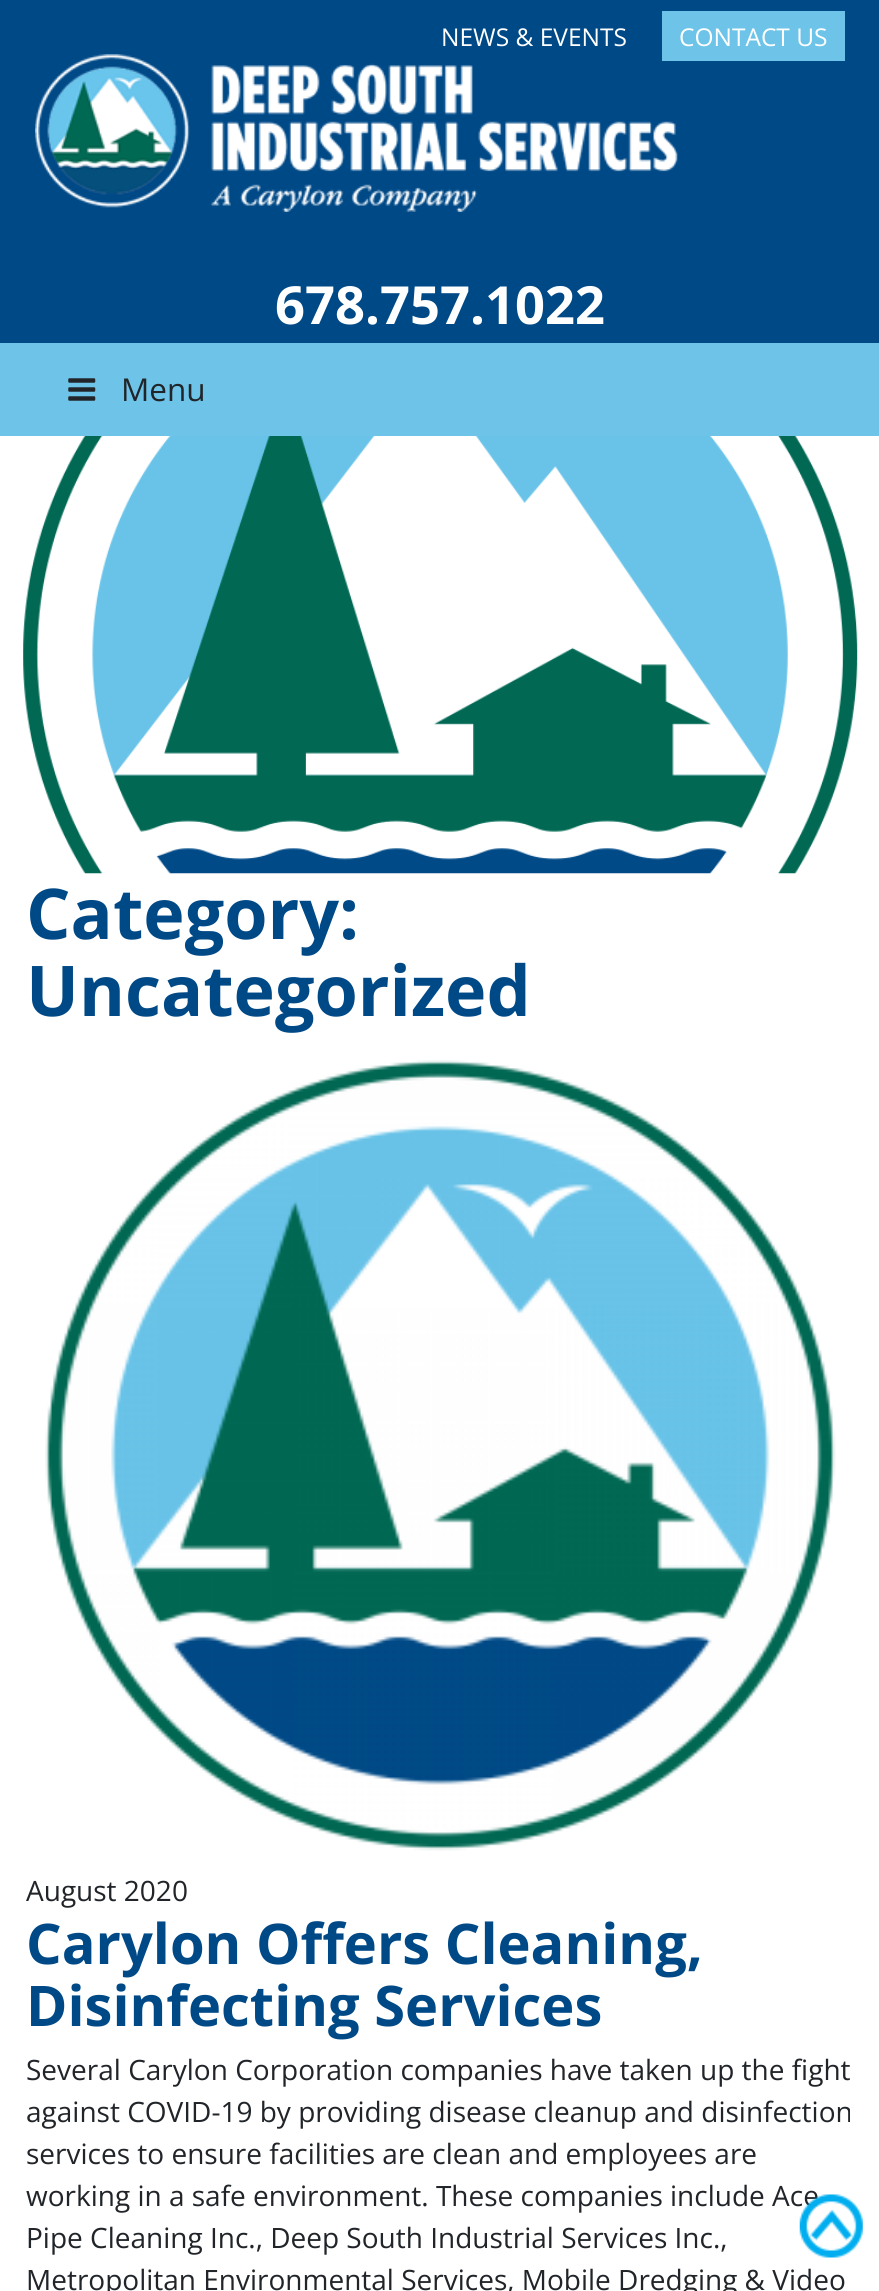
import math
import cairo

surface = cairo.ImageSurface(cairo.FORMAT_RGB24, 879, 2291)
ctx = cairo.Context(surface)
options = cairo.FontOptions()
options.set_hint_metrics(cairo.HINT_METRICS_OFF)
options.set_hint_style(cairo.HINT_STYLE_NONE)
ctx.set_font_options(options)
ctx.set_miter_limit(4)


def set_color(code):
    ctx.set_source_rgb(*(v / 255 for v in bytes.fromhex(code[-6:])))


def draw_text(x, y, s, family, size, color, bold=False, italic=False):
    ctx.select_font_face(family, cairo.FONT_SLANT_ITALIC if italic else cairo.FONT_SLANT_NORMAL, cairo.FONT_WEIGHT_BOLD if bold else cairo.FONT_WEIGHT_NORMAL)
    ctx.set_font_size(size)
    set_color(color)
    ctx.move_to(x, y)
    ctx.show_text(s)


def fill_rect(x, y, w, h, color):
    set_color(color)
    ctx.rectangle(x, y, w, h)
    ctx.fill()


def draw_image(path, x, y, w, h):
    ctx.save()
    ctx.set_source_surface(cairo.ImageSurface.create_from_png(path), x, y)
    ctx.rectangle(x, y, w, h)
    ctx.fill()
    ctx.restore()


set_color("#ffffff")
ctx.paint()
fill_rect(0, 0, 879, 343, "#004987")
draw_text(441, 46, "NEWS & EVENTS", "Open Sans", 24.5, "#ffffff")
fill_rect(662, 11, 183, 50, "#6ec4e8")
draw_text(679, 46, "CONTACT US", "Open Sans", 24.5, "#ffffff")
draw_image("assets/img1.png", 35, 54, 643, 158)
draw_text(275, 324, "678.757.1022", "Open Sans", 52.5, "#ffffff", bold=True)
fill_rect(0, 343, 879, 93, "#6ec4e8")
draw_image("assets/img2.png", 68, 378, 28, 23)
draw_text(121, 401, "Menu", "Open Sans", 31.5, "#212529")
draw_image("assets/img3.png", 23, 436, 835, 438)
draw_text(26, 939, "Category:", "Open Sans", 70, "#004987", bold=True)
draw_text(26, 1016, "Uncategorized", "Open Sans", 70, "#004987", bold=True)
draw_image("assets/img4.png", 45, 1060, 791, 791)
draw_text(26, 1901, "August 2020", "Open Sans", 28, "#212529")
draw_text(26, 1964, "Carylon Offers Cleaning,", "Open Sans", 56, "#004987", bold=True)
draw_text(26, 2026, "Disinfecting Services", "Open Sans", 56, "#004987", bold=True)
draw_text(26, 2080, "Several Carylon Corporation companies have taken up the fight", "Open Sans", 28, "#212529")
draw_text(26, 2122, "against COVID-19 by providing disease cleanup and disinfection", "Open Sans", 28, "#212529")
draw_text(26, 2164, "services to ensure facilities are clean and employees are", "Open Sans", 28, "#212529")
draw_text(26, 2206, "working in a safe environment. These companies include Ace", "Open Sans", 28, "#212529")
draw_text(26, 2248, "Pipe Cleaning Inc., Deep South Industrial Services Inc.,", "Open Sans", 28, "#212529")
draw_text(26, 2290, "Metropolitan Environmental Services, Mobile Dredging & Video", "Open Sans", 28, "#212529")
draw_image("assets/img5.png", 799, 2194, 64, 64)
surface.write_to_png("output.png")
